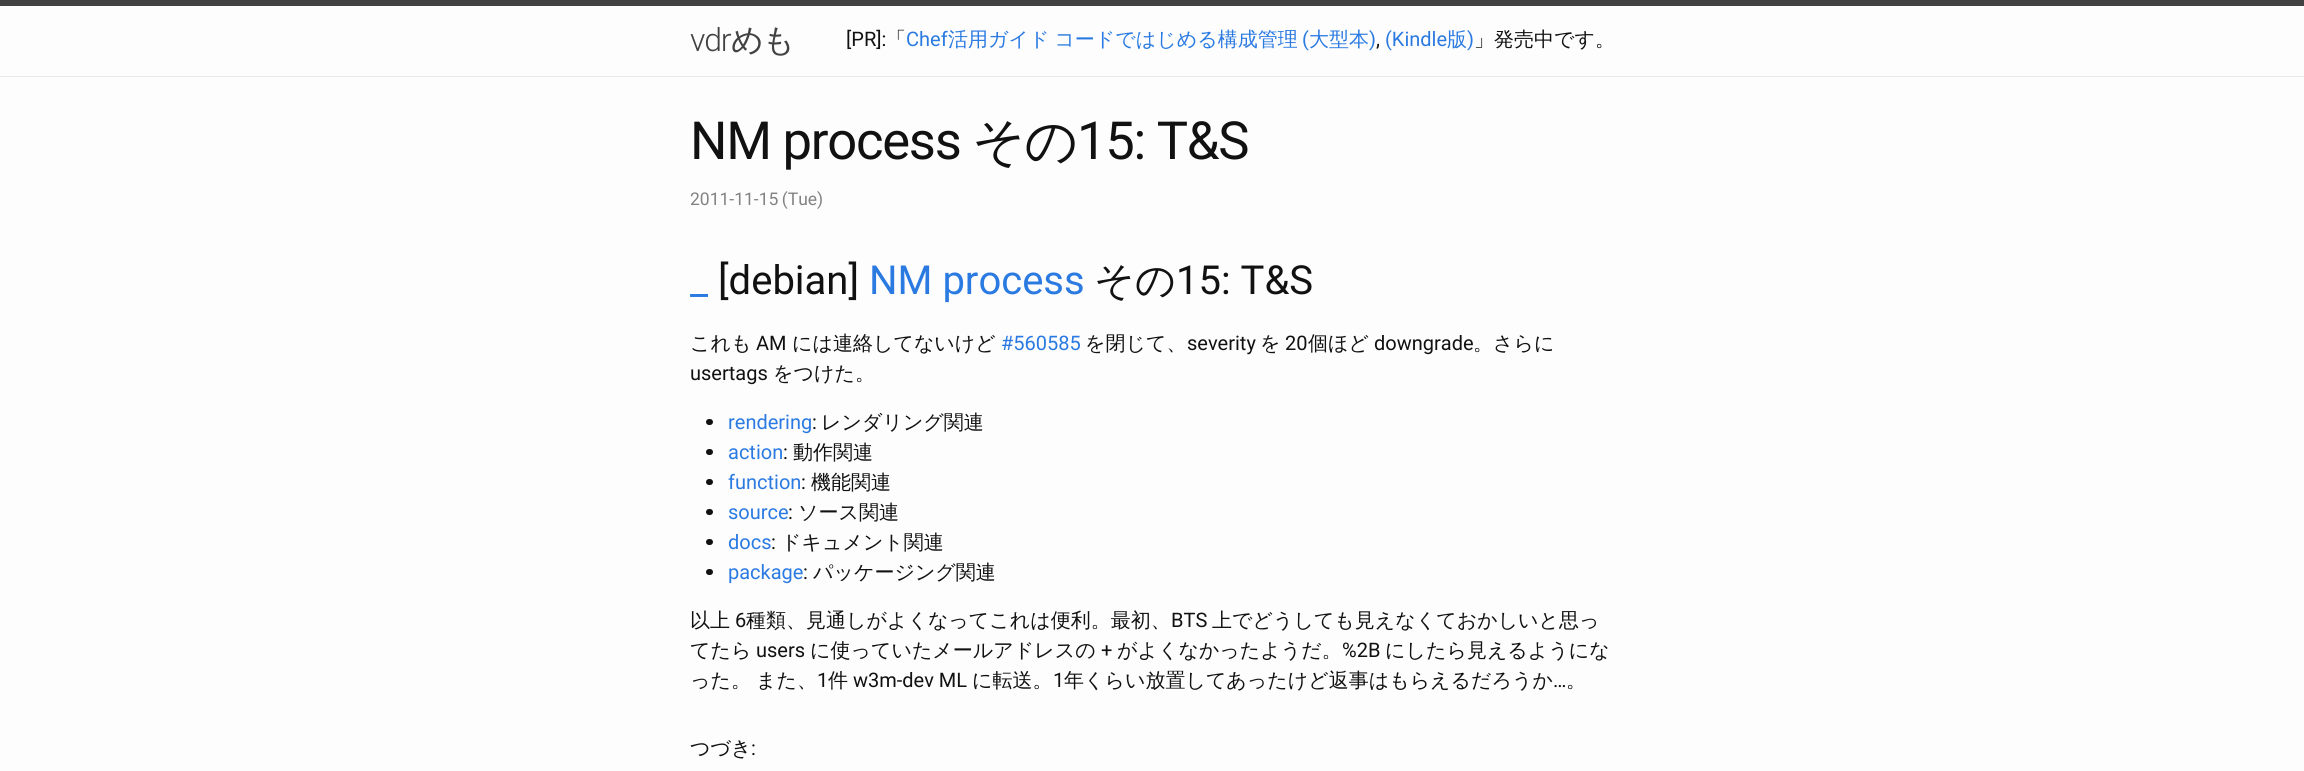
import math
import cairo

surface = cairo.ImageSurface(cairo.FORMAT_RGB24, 2304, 771)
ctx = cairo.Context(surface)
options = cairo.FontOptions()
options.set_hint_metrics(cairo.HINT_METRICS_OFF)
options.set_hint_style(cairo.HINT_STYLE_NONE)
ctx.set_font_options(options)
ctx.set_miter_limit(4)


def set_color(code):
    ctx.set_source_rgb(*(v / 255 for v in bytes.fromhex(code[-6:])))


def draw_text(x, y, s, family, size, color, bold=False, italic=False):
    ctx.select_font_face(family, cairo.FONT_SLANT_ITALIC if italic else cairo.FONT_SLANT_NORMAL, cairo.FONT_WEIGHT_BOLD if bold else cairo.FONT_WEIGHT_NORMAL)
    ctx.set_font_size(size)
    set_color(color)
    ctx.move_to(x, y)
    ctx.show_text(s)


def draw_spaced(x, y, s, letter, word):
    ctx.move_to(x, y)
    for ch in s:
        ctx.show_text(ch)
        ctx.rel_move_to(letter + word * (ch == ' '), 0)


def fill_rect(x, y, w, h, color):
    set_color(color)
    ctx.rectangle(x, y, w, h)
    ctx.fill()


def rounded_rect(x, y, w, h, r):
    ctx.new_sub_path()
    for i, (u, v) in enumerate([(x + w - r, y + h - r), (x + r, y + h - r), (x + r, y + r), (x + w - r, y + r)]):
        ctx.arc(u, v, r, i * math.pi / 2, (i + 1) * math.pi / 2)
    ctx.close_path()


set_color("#fdfdfd")
ctx.paint()
fill_rect(0, 0, 2304, 6, "#424242")
fill_rect(0, 76, 2304, 1, "#e8e8e8")
ctx.select_font_face("Roboto Light")
ctx.set_font_size(32)
set_color("#424242")
draw_spaced(690, 51, "vdr", -1.25, 0)
ctx.select_font_face("WenQuanYi Zen Hei Medium")
draw_spaced(731, 51, "めも", -1.25, 0)
draw_text(846, 46, "[PR]:", "Roboto", 20, "#111111")
draw_text(886, 46, "「", "WenQuanYi Zen Hei Medium", 20, "#111111")
draw_text(906, 46, "Chef", "Roboto", 20, "#2a7ae2")
ctx.select_font_face("WenQuanYi Zen Hei Medium")
draw_spaced(948, 46, "活用ガイド コードではじめる構成管理", 0, -1)
draw_text(1302, 46, "(", "Roboto", 20, "#2a7ae2")
draw_text(1309, 46, "大型本", "WenQuanYi Zen Hei Medium", 20, "#2a7ae2")
draw_text(1369, 46, ")", "Roboto", 20, "#2a7ae2")
draw_text(1376, 46, ",", "Roboto", 20, "#111111")
draw_text(1385, 46, "(Kindle", "Roboto", 20, "#2a7ae2")
draw_text(1447, 46, "版", "WenQuanYi Zen Hei Medium", 20, "#2a7ae2")
draw_text(1467, 46, ")", "Roboto", 20, "#2a7ae2")
draw_text(1474, 46, "」発売中です。", "WenQuanYi Zen Hei Medium", 20, "#111111")
ctx.select_font_face("Roboto")
ctx.set_font_size(52.5)
draw_spaced(690, 159, "NM process", -1.25, 0)
ctx.select_font_face("WenQuanYi Zen Hei Medium")
draw_spaced(972, 159, "その", -1.25, 0)
ctx.select_font_face("Roboto")
draw_spaced(1077, 159, "15: T&S", -1.25, 0)
ctx.set_font_size(17.5)
set_color("#828282")
draw_spaced(690, 205, "2011-11-15 (Tue)", 0, -1)
draw_text(718, 294, "[debian]", "Roboto", 40, "#111111")
draw_text(869, 294, "NM process", "Roboto", 40, "#2a7ae2")
draw_text(1094, 294, "その", "WenQuanYi Zen Hei Medium", 40, "#111111")
draw_text(1176, 294, "15: T&S", "Roboto", 40, "#111111")
draw_text(690, 294, "_", "Roboto", 40, "#2a7ae2")
draw_text(690, 350, "これも", "WenQuanYi Zen Hei Medium", 20, "#111111")
draw_text(756, 350, "AM", "Roboto", 20, "#111111")
draw_text(792, 350, "には連絡してないけど", "WenQuanYi Zen Hei Medium", 20, "#111111")
draw_text(1001, 350, "#560585", "Roboto", 20, "#2a7ae2")
draw_text(1085, 350, "を閉じて、", "WenQuanYi Zen Hei Medium", 20, "#111111")
draw_text(1187, 350, "severity", "Roboto", 20, "#111111")
draw_text(1260, 350, "を", "WenQuanYi Zen Hei Medium", 20, "#111111")
draw_text(1285, 350, "20", "Roboto", 20, "#111111")
draw_text(1308, 350, "個ほど", "WenQuanYi Zen Hei Medium", 20, "#111111")
draw_text(1374, 350, "downgrade", "Roboto", 20, "#111111")
draw_text(1473, 350, "。さらに", "WenQuanYi Zen Hei Medium", 20, "#111111")
draw_text(690, 380, "usertags", "Roboto", 20, "#111111")
draw_text(773, 380, "をつけた。", "WenQuanYi Zen Hei Medium", 20, "#111111")
rounded_rect(706, 419, 7, 6, 3)
ctx.fill()
draw_text(728, 429, "rendering", "Roboto", 20, "#2a7ae2")
draw_text(812, 429, ":", "Roboto", 20, "#111111")
draw_text(821, 429, "レンダリング関連", "WenQuanYi Zen Hei Medium", 20, "#111111")
rounded_rect(706, 449, 7, 6, 3)
ctx.fill()
draw_text(728, 459, "action", "Roboto", 20, "#2a7ae2")
draw_text(783, 459, ":", "Roboto", 20, "#111111")
draw_text(793, 459, "動作関連", "WenQuanYi Zen Hei Medium", 20, "#111111")
rounded_rect(706, 479, 7, 6, 3)
ctx.fill()
draw_text(728, 489, "function", "Roboto", 20, "#2a7ae2")
draw_text(801, 489, ":", "Roboto", 20, "#111111")
draw_text(811, 489, "機能関連", "WenQuanYi Zen Hei Medium", 20, "#111111")
rounded_rect(706, 509, 7, 6, 3)
ctx.fill()
draw_text(728, 519, "source", "Roboto", 20, "#2a7ae2")
draw_text(788, 519, ":", "Roboto", 20, "#111111")
draw_text(798, 519, "ソース関連", "WenQuanYi Zen Hei Medium", 20, "#111111")
rounded_rect(706, 539, 7, 6, 3)
ctx.fill()
draw_text(728, 549, "docs", "Roboto", 20, "#2a7ae2")
draw_text(771, 549, ":", "Roboto", 20, "#111111")
draw_text(781, 549, "ドキュメント関連", "WenQuanYi Zen Hei Medium", 20, "#111111")
rounded_rect(706, 569, 7, 6, 3)
ctx.fill()
draw_text(728, 579, "package", "Roboto", 20, "#2a7ae2")
draw_text(803, 579, ":", "Roboto", 20, "#111111")
draw_text(813, 579, "パッケージング関連", "WenQuanYi Zen Hei Medium", 20, "#111111")
draw_text(690, 627, "以上", "WenQuanYi Zen Hei Medium", 20, "#111111")
draw_text(735, 627, "6", "Roboto", 20, "#111111")
draw_text(746, 627, "種類、見通しがよくなってこれは便利。最初、", "WenQuanYi Zen Hei Medium", 20, "#111111")
draw_text(1171, 627, "BTS", "Roboto", 20, "#111111")
draw_text(1212, 627, "上でどうしても見えなくておかしいと思っ", "WenQuanYi Zen Hei Medium", 20, "#111111")
draw_text(690, 657, "てたら", "WenQuanYi Zen Hei Medium", 20, "#111111")
draw_text(756, 657, "users", "Roboto", 20, "#111111")
draw_text(810, 657, "に使っていたメールアドレスの", "WenQuanYi Zen Hei Medium", 20, "#111111")
draw_text(1101, 657, "+", "Roboto", 20, "#111111")
draw_text(1117, 657, "がよくなかったようだ。", "WenQuanYi Zen Hei Medium", 20, "#111111")
draw_text(1342, 657, "%2B", "Roboto", 20, "#111111")
draw_text(1385, 657, "にしたら見えるようにな", "WenQuanYi Zen Hei Medium", 20, "#111111")
draw_text(690, 687, "った。", "WenQuanYi Zen Hei Medium", 20, "#111111")
draw_text(756, 687, "また、", "WenQuanYi Zen Hei Medium", 20, "#111111")
draw_text(817, 687, "1", "Roboto", 20, "#111111")
draw_text(828, 687, "件", "WenQuanYi Zen Hei Medium", 20, "#111111")
draw_text(853, 687, "w3m-dev ML", "Roboto", 20, "#111111")
draw_text(972, 687, "に転送。", "WenQuanYi Zen Hei Medium", 20, "#111111")
draw_text(1053, 687, "1", "Roboto", 20, "#111111")
draw_text(1064, 687, "年くらい放置してあったけど返事はもらえるだろうか", "WenQuanYi Zen Hei Medium", 20, "#111111")
draw_text(1553, 687, "…", "Roboto", 20, "#111111")
draw_text(1566, 687, "。", "WenQuanYi Zen Hei Medium", 20, "#111111")
draw_text(690, 755, "つづき", "WenQuanYi Zen Hei Medium", 20, "#111111")
draw_text(751, 755, ":", "Roboto", 20, "#111111")
surface.write_to_png("output.png")
